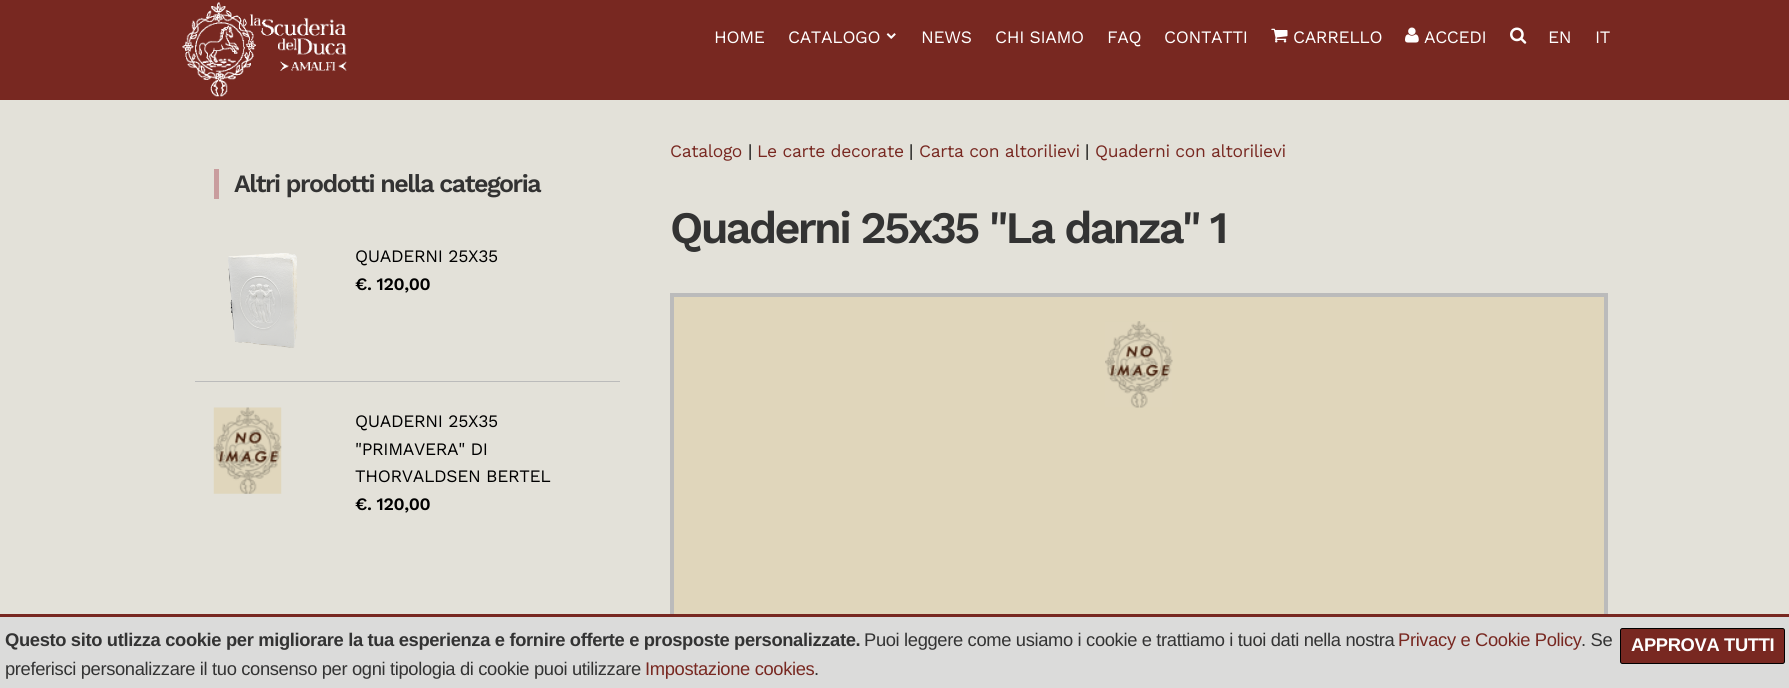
import math
import cairo

surface = cairo.ImageSurface(cairo.FORMAT_RGB24, 1789, 688)
ctx = cairo.Context(surface)
options = cairo.FontOptions()
options.set_hint_metrics(cairo.HINT_METRICS_OFF)
options.set_hint_style(cairo.HINT_STYLE_NONE)
ctx.set_font_options(options)
ctx.set_miter_limit(4)


def set_color(code):
    ctx.set_source_rgb(*(v / 255 for v in bytes.fromhex(code[-6:])))


def draw_spaced(x, y, s, letter, word):
    ctx.move_to(x, y)
    for ch in s:
        ctx.show_text(ch)
        ctx.rel_move_to(letter + word * (ch == ' '), 0)


def fill_rect(x, y, w, h, color):
    set_color(color)
    ctx.rectangle(x, y, w, h)
    ctx.fill()


def rounded_rect(x, y, w, h, r):
    ctx.new_sub_path()
    for i, (u, v) in enumerate([(x + w - r, y + h - r), (x + r, y + h - r), (x + r, y + r), (x + w - r, y + r)]):
        ctx.arc(u, v, r, i * math.pi / 2, (i + 1) * math.pi / 2)
    ctx.close_path()


def draw_image(path, x, y, w, h):
    ctx.save()
    ctx.set_source_surface(cairo.ImageSurface.create_from_png(path), x, y)
    ctx.rectangle(x, y, w, h)
    ctx.fill()
    ctx.restore()


set_color("#e3e1d9")
ctx.paint()
fill_rect(0, 0, 1789, 100, "#782821")
draw_image("assets/img1.png", 182, 2, 165, 95)
ctx.select_font_face("Work Sans")
ctx.set_font_size(17.5)
set_color("#ffffff")
draw_spaced(714, 43, "HOME", -0.35, 0)
draw_spaced(788, 43, "CATALOGO", -0.35, 0)
draw_image("assets/img2.png", 886, 33, 10, 6)
draw_spaced(921, 43, "NEWS", -0.35, 0)
draw_spaced(995, 43, "CHI SIAMO", -0.35, 0)
draw_spaced(1107, 43, "FAQ", -0.35, 0)
draw_spaced(1164, 43, "CONTATTI", -0.35, 0)
draw_image("assets/img3.png", 1271, 28, 17, 15)
draw_spaced(1293, 43, "CARRELLO", -0.35, 0)
draw_image("assets/img4.png", 1405, 27, 14, 16)
draw_spaced(1424, 43, "ACCEDI", -0.35, 0)
draw_image("assets/img5.png", 1510, 27, 17, 17)
draw_spaced(1548, 43, "EN", -0.35, 0)
draw_spaced(1595, 43, "IT", -0.35, 0)
fill_rect(214, 169, 5, 30, "#c99d9e")
ctx.select_font_face("Work Sans SemiBold")
ctx.set_font_size(25)
set_color("#333333")
draw_spaced(234, 192, "Altri prodotti nella categoria", -1.5, 0)
draw_image("assets/img6.png", 228, 253, 70, 95)
ctx.select_font_face("Work Sans")
ctx.set_font_size(17.5)
set_color("#000000")
draw_spaced(355, 262, "QUADERNI 25X35", -0.35, 0)
ctx.select_font_face("Work Sans SemiBold")
draw_spaced(355, 290, "€. 120,00", -0.35, 0)
fill_rect(195, 381, 425, 1, "#bbbbbb")
draw_image("assets/img7.png", 213, 407, 69, 87)
ctx.select_font_face("Work Sans")
set_color("#000000")
draw_spaced(355, 427, "QUADERNI 25X35", -0.35, 0)
draw_spaced(355, 455, "\"PRIMAVERA\" DI", -0.35, 0)
draw_spaced(355, 482, "THORVALDSEN BERTEL", -0.35, 0)
ctx.select_font_face("Work Sans SemiBold")
draw_spaced(355, 510, "€. 120,00", -0.35, 0)
ctx.select_font_face("Work Sans")
set_color("#782821")
draw_spaced(670, 157, "Catalogo", -0.35, 0)
set_color("#000000")
draw_spaced(748, 157, "|", -0.35, 0)
set_color("#782821")
draw_spaced(757, 157, "Le carte decorate", -0.35, 0)
set_color("#000000")
draw_spaced(909, 157, "|", -0.35, 0)
set_color("#782821")
draw_spaced(919, 157, "Carta con altorilievi", -0.35, 0)
set_color("#000000")
draw_spaced(1085, 157, "|", -0.35, 0)
set_color("#782821")
draw_spaced(1095, 157, "Quaderni con altorilievi", -0.35, 0)
ctx.select_font_face("Work Sans SemiBold")
ctx.set_font_size(45)
set_color("#333333")
draw_spaced(670, 243, "Quaderni 25x35 \"La danza\" 1", -2.7, 0)
fill_rect(674, 297, 930, 317, "#e0d6bb")
ctx.rectangle(672, 295, 934, 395)
set_color("#bbbbbb")
ctx.set_line_width(4)
ctx.stroke()
draw_image("assets/img8.png", 1105, 321, 68, 87)
fill_rect(0, 617, 1789, 71, "#dbdbda")
fill_rect(0, 614, 1789, 3, "#782821")
ctx.select_font_face("Liberation Sans", cairo.FONT_SLANT_NORMAL, cairo.FONT_WEIGHT_BOLD)
ctx.set_font_size(18.35)
set_color("#333333")
draw_spaced(5, 646, "Questo sito utlizza cookie per migliorare la tua esperienza e fornire offerte e prosposte personalizzate.", -0.35, 0)
ctx.select_font_face("Liberation Sans")
draw_spaced(864, 646, "Puoi leggere come usiamo i cookie e trattiamo i tuoi dati nella nostra", -0.35, 0)
set_color("#782821")
draw_spaced(1398, 646, "Privacy e Cookie Policy", -0.35, 0)
set_color("#333333")
draw_spaced(1581, 646, ". Se", -0.35, 0)
draw_spaced(5, 675, "preferisci personalizzare il tuo consenso per ogni tipologia di cookie puoi utilizzare", -0.35, 0)
set_color("#782821")
draw_spaced(645, 675, "Impostazione cookies", -0.35, 0)
set_color("#333333")
draw_spaced(814, 675, ".", -0.35, 0)
set_color("#782821")
rounded_rect(1620.5, 628.5, 164, 35, 2)
ctx.fill_preserve()
set_color("#000000")
ctx.set_line_width(1)
ctx.stroke()
ctx.select_font_face("Liberation Sans", cairo.FONT_SLANT_NORMAL, cairo.FONT_WEIGHT_BOLD)
set_color("#ffffff")
draw_spaced(1631, 651, "APPROVA TUTTI", -0.35, 0)
surface.write_to_png("output.png")
